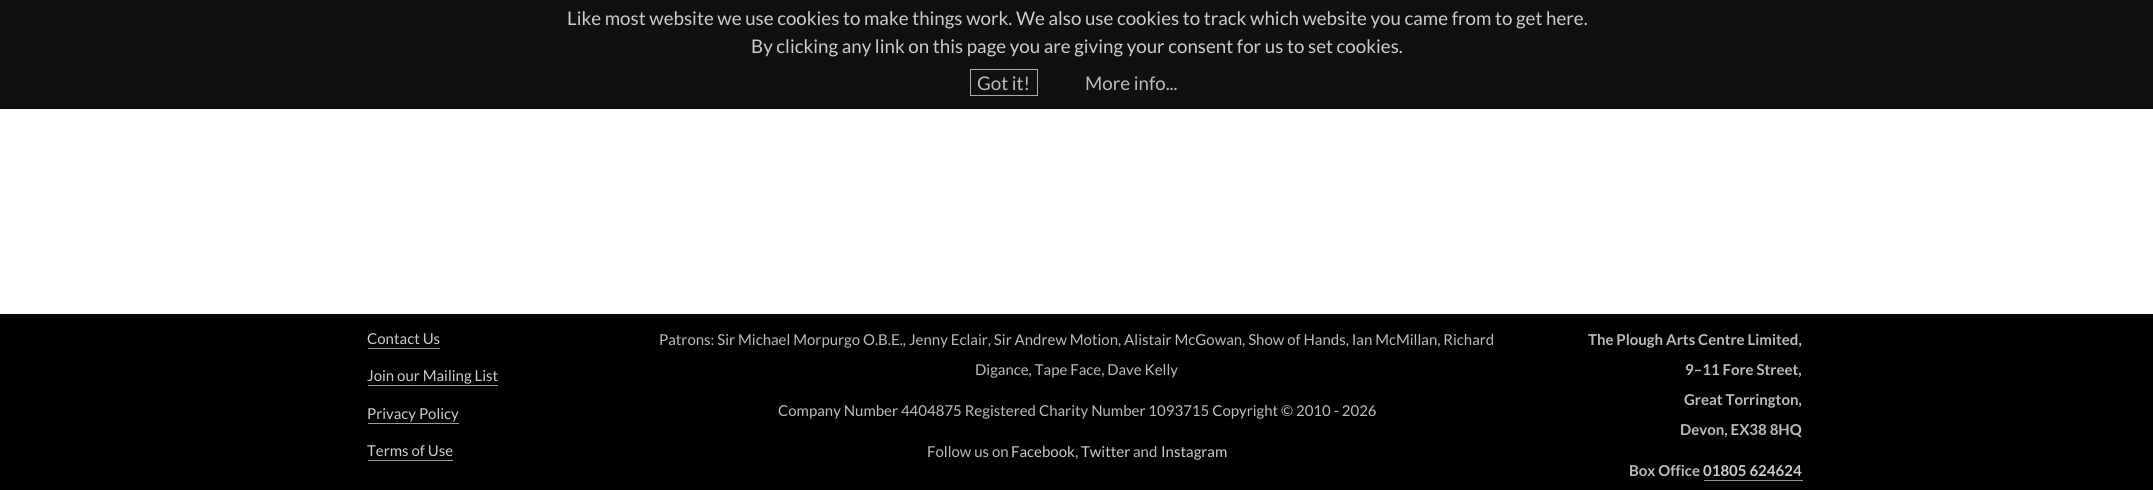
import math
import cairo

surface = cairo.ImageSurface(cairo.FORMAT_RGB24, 2153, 490)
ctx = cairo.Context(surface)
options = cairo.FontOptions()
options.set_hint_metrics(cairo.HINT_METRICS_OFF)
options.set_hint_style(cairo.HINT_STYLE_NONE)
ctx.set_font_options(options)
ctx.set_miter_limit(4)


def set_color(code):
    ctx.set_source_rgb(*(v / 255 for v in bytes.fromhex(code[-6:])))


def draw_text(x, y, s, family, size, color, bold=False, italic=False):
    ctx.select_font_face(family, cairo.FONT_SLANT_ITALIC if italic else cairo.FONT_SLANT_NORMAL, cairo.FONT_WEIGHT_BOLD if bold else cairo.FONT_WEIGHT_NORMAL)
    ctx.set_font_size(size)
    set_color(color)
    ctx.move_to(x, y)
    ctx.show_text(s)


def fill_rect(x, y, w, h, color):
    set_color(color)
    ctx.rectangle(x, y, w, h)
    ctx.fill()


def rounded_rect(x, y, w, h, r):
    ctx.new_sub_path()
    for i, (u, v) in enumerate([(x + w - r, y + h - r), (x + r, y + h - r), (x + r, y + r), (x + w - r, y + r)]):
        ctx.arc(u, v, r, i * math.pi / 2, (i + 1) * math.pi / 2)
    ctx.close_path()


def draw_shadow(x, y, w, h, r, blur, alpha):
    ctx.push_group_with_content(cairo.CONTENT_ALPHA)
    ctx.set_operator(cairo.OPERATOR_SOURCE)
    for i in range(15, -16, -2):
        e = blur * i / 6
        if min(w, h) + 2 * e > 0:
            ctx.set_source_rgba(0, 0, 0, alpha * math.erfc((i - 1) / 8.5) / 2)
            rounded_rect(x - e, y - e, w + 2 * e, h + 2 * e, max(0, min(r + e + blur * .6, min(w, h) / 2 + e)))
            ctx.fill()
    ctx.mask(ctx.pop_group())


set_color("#ffffff")
ctx.paint()
set_color("#333333")
draw_shadow(0, 0, 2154, 104, 0, 3, 1)
fill_rect(0, 0, 2153, 109, "#101010")
draw_text(567, 25, "Like most website we use cookies to make things work. We also use cookies to track which website you came from to get here.", "Lato", 18.75, "#cccccc")
draw_text(751, 53, "By clicking any link on this page you are giving your consent for us to set cookies.", "Lato", 18.75, "#cccccc")
ctx.rectangle(970.5, 69.5, 67, 26)
set_color("#aaaaaa")
ctx.set_line_width(1)
ctx.stroke()
draw_text(977, 90, "Got it!", "Lato", 18.75, "#bbbbbb")
draw_text(1085, 90, "More info...", "Lato", 18.75, "#bbbbbb")
fill_rect(0, 314, 2153, 176, "#000000")
draw_text(367, 344, "Contact Us", "Lato", 15, "#cccccc")
fill_rect(368, 348, 72, 1, "#999999")
draw_text(367, 381, "Join our Mailing List", "Lato", 15, "#cccccc")
fill_rect(368, 385, 130, 1, "#999999")
draw_text(367, 419, "Privacy Policy", "Lato", 15, "#cccccc")
fill_rect(368, 423, 91, 1, "#999999")
draw_text(367, 456, "Terms of Use", "Lato", 15, "#cccccc")
fill_rect(368, 460, 85, 1, "#999999")
draw_text(659, 345, "Patrons: Sir Michael Morpurgo O.B.E., Jenny Eclair, Sir Andrew Motion, Alistair McGowan, Show of Hands, Ian McMillan, Richard", "Lato", 15, "#bbbbbb")
draw_text(975, 375, "Digance, Tape Face, Dave Kelly", "Lato", 15, "#bbbbbb")
draw_text(778, 416, "Company Number 4404875 Registered Charity Number 1093715 Copyright © 2010 - 2026", "Lato", 15, "#bbbbbb")
draw_text(927, 457, "Follow us on", "Lato", 15, "#bbbbbb")
draw_text(1011, 457, "Facebook", "Lato", 15, "#cccccc")
draw_text(1075, 457, ",", "Lato", 15, "#bbbbbb")
draw_text(1081, 457, "Twitter", "Lato", 15, "#cccccc")
draw_text(1133, 457, "and", "Lato", 15, "#bbbbbb")
draw_text(1161, 457, "Instagram", "Lato", 15, "#cccccc")
draw_text(1588, 345, "The Plough Arts Centre Limited,", "Lato", 15, "#bbbbbb", bold=True)
draw_text(1685, 375, "9–11 Fore Street,", "Lato", 15, "#bbbbbb", bold=True)
draw_text(1684, 405, "Great Torrington,", "Lato", 15, "#bbbbbb", bold=True)
draw_text(1680, 435, "Devon, EX38 8HQ", "Lato", 15, "#bbbbbb", bold=True)
draw_text(1629, 476, "Box Office", "Lato", 15, "#bbbbbb", bold=True)
draw_text(1703, 476, "01805 624624", "Lato", 15, "#cccccc", bold=True)
fill_rect(1704, 480, 99, 1, "#999999")
surface.write_to_png("output.png")
